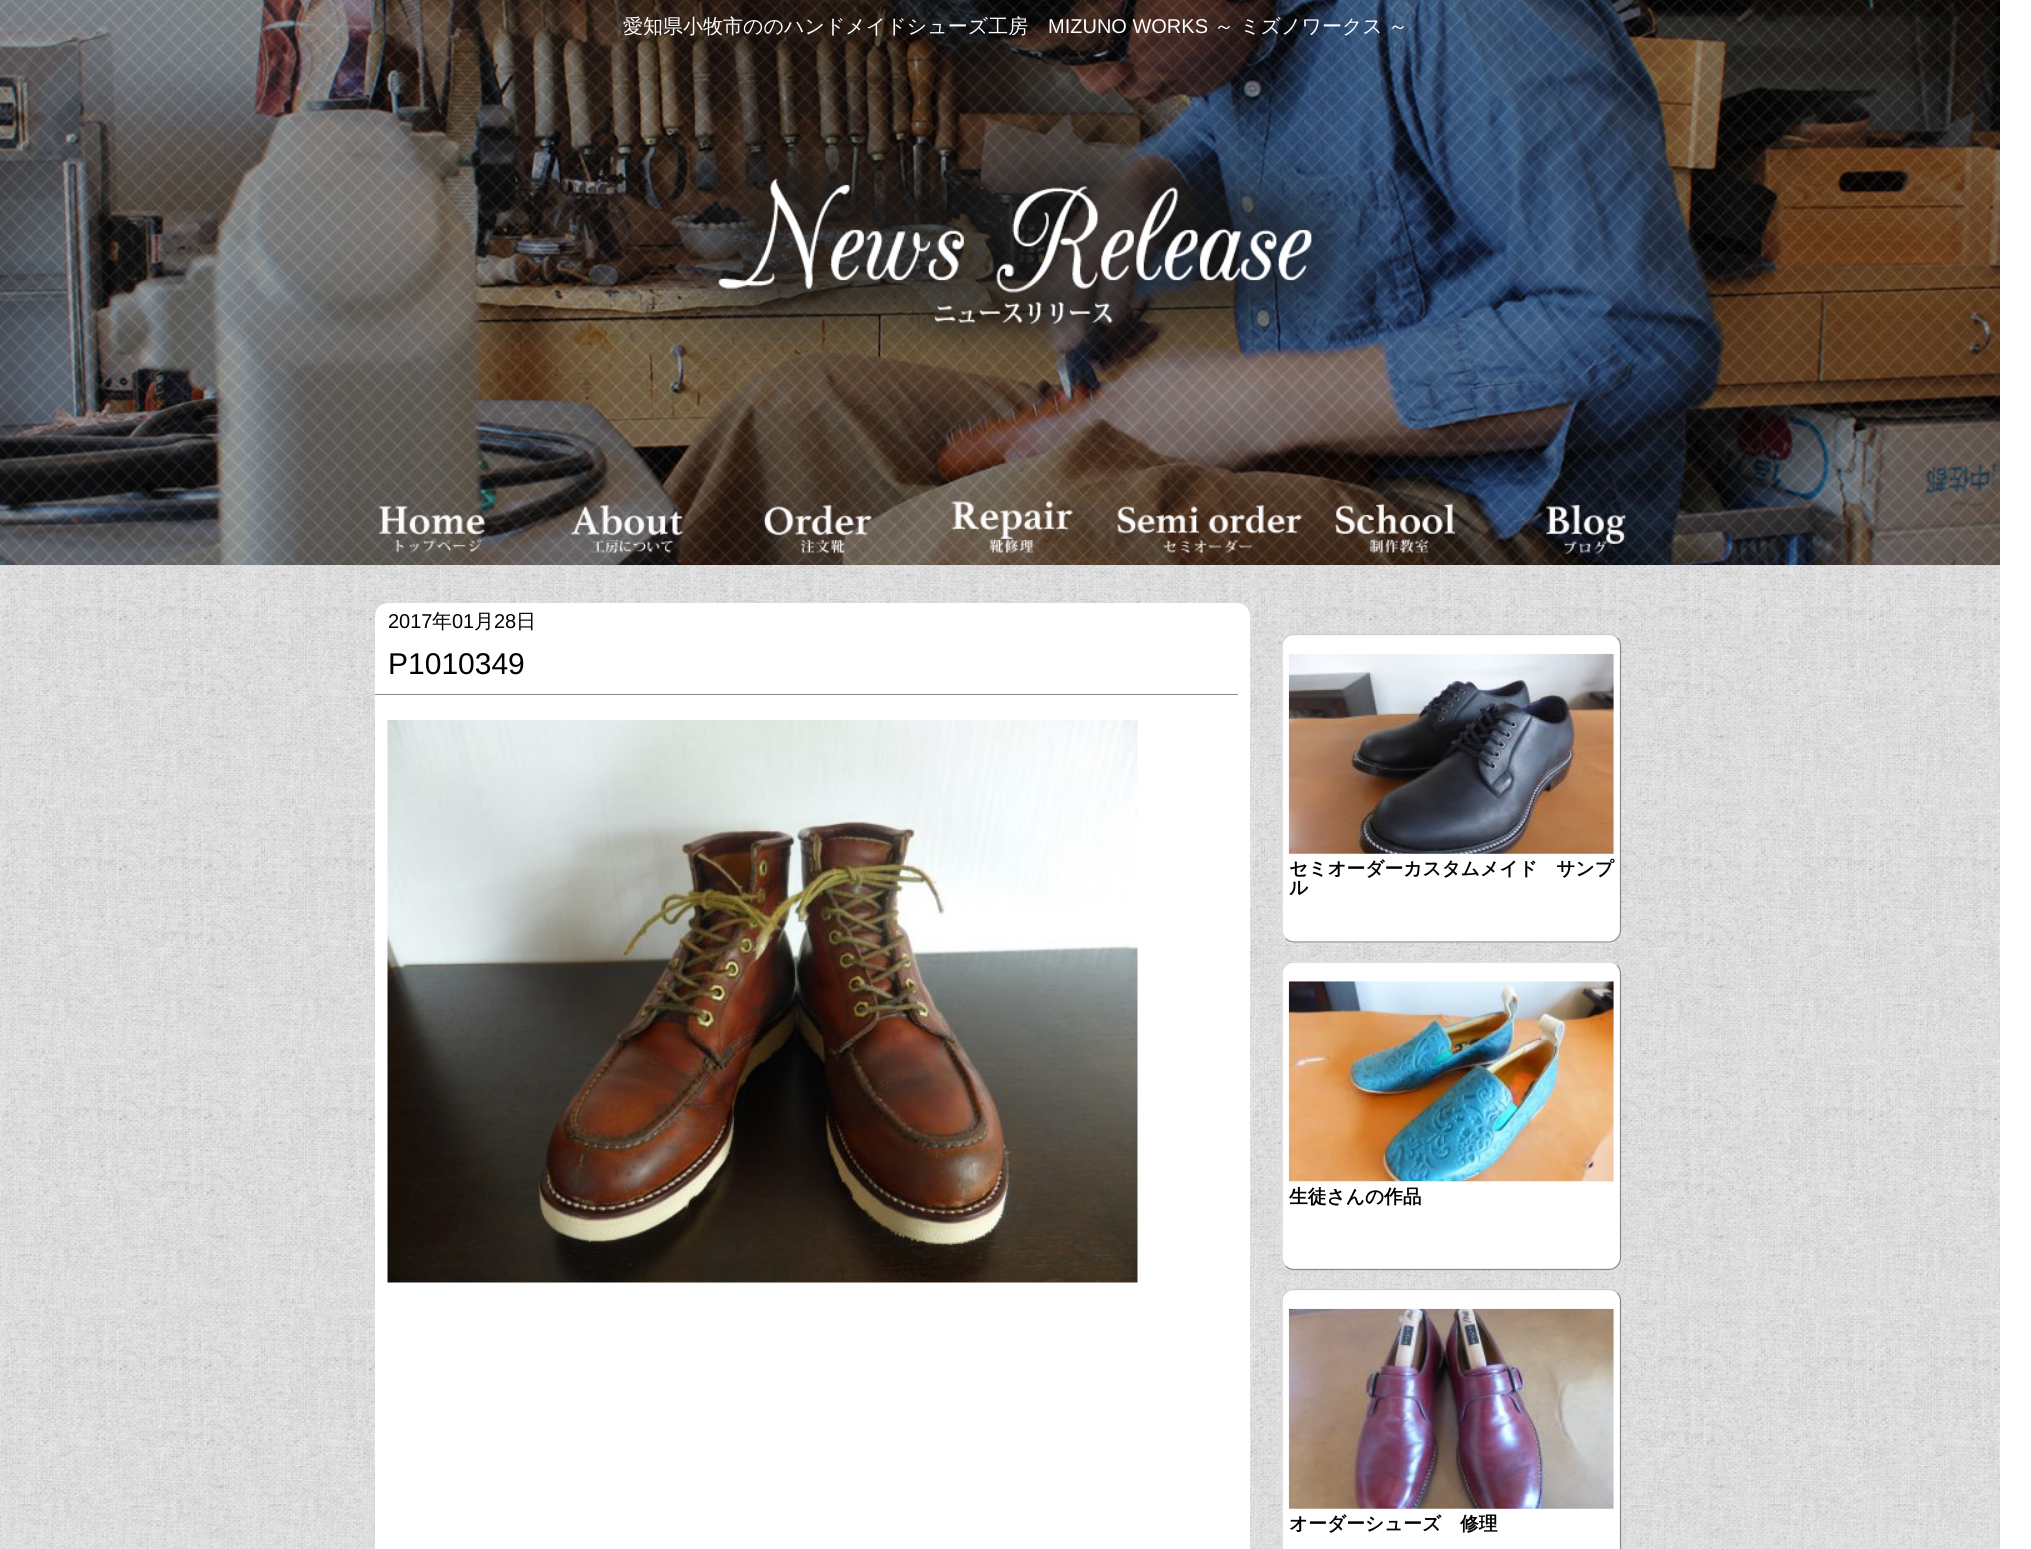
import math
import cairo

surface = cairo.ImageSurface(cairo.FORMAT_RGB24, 2031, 1549)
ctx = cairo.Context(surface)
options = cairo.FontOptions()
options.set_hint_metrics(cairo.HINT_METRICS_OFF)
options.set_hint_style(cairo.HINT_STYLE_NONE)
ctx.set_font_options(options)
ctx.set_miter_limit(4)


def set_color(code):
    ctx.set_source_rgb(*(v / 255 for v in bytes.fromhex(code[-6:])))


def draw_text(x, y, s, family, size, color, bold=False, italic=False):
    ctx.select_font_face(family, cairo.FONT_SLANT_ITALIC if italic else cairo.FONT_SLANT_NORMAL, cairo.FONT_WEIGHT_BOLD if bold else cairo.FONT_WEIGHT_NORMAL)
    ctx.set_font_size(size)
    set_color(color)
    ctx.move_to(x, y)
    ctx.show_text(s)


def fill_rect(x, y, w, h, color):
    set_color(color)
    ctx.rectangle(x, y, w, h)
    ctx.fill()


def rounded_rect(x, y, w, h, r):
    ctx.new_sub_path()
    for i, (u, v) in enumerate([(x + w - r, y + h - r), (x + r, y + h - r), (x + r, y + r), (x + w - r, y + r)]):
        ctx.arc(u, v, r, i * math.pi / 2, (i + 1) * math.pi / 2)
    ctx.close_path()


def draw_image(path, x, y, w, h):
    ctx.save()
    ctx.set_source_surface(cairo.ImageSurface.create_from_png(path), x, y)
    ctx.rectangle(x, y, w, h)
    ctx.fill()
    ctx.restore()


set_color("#ffffff")
ctx.paint()
draw_image("assets/img1.png", 0, 0, 2000, 565)
draw_text(623, 33, "愛知県小牧市ののハンドメイドシューズ工房", "WenQuanYi Zen Hei Medium", 20, "#ffffff")
draw_text(1048, 33, "MIZUNO WORKS", "Liberation Sans", 20, "#ffffff")
draw_text(1214, 33, "～", "WenQuanYi Zen Hei Medium", 20, "#ffffff")
draw_text(1240, 33, "ミズノワークス", "WenQuanYi Zen Hei Medium", 20, "#ffffff")
draw_text(1388, 33, "～", "WenQuanYi Zen Hei Medium", 20, "#ffffff")
draw_image("assets/img2.png", 646, 109, 746, 268)
draw_image("assets/img3.png", 378, 506, 108, 47)
draw_image("assets/img4.png", 571, 504, 112, 50)
draw_image("assets/img5.png", 763, 504, 109, 50)
draw_image("assets/img6.png", 951, 501, 122, 52)
draw_image("assets/img7.png", 1117, 504, 185, 50)
draw_image("assets/img8.png", 1334, 503, 122, 50)
draw_image("assets/img9.png", 1546, 504, 81, 50)
draw_image("assets/img10.png", 0, 565, 2000, 984)
rounded_rect(375, 603, 875, 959, 13)
ctx.fill()
fill_rect(375, 694, 863, 1, "#888888")
draw_text(388, 628, "2017", "Liberation Sans", 20, "#000000")
draw_text(432, 628, "年", "WenQuanYi Zen Hei Medium", 20, "#000000")
draw_text(452, 628, "01", "Liberation Sans", 20, "#000000")
draw_text(474, 628, "月", "WenQuanYi Zen Hei Medium", 20, "#000000")
draw_text(494, 628, "28", "Liberation Sans", 20, "#000000")
draw_text(516, 628, "日", "WenQuanYi Zen Hei Medium", 20, "#000000")
draw_text(388, 674, "P1010349", "Liberation Sans", 30, "#000000")
draw_image("assets/img11.png", 387, 720, 751, 563)
set_color("#ffffff")
rounded_rect(1281, 634, 340, 309, 13)
ctx.fill()
ctx.new_path()
ctx.move_to(1617, 638)
ctx.curve_to(1619.5, 640, 1620.5, 643, 1620.5, 646)
ctx.line_to(1620.5, 930)
ctx.curve_to(1620.5, 933, 1619.5, 936, 1617, 938.5)
ctx.curve_to(1615, 940.5, 1612, 942, 1609, 942)
ctx.line_to(1294, 942)
ctx.curve_to(1290.5, 942, 1287.5, 940.5, 1285.5, 938.5)
set_color("#888888")
ctx.set_line_width(1.2)
ctx.stroke()
ctx.new_path()
ctx.move_to(1285.5, 938.5)
ctx.curve_to(1283, 936, 1282, 933, 1282, 930)
ctx.line_to(1282, 646)
ctx.curve_to(1282, 643, 1283, 640, 1285.5, 638)
ctx.curve_to(1287.5, 635.5, 1290.5, 634.5, 1294, 634.5)
ctx.line_to(1609, 634.5)
ctx.curve_to(1612, 634.5, 1615, 635.5, 1617, 638)
set_color("#cccccc")
ctx.stroke()
draw_image("assets/img12.png", 1288, 653, 326, 201)
draw_text(1289, 875, "セミオーダーカスタムメイド　サンプ", "WenQuanYi Zen Hei", 18.75, "#000000", bold=True)
draw_text(1289, 894, "ル", "WenQuanYi Zen Hei", 18.75, "#000000", bold=True)
set_color("#ffffff")
rounded_rect(1281, 961, 340, 309, 13)
ctx.fill()
ctx.new_path()
ctx.move_to(1617, 965.5)
ctx.curve_to(1619.5, 967.5, 1620.5, 970.5, 1620.5, 974)
ctx.line_to(1620.5, 1257.5)
ctx.curve_to(1620.5, 1260.5, 1619.5, 1263.5, 1617, 1266)
ctx.curve_to(1615, 1268, 1612, 1269.5, 1609, 1269.5)
ctx.line_to(1294, 1269.5)
ctx.curve_to(1290.5, 1269.5, 1287.5, 1268, 1285.5, 1266)
set_color("#888888")
ctx.stroke()
ctx.new_path()
ctx.move_to(1285.5, 1266)
ctx.curve_to(1283, 1263.5, 1282, 1260.5, 1282, 1257.5)
ctx.line_to(1282, 974)
ctx.curve_to(1282, 970.5, 1283, 967.5, 1285.5, 965.5)
ctx.curve_to(1287.5, 963, 1290.5, 962, 1294, 962)
ctx.line_to(1609, 962)
ctx.curve_to(1612, 962, 1615, 963, 1617, 965.5)
set_color("#cccccc")
ctx.stroke()
draw_image("assets/img13.png", 1288, 981, 326, 201)
draw_text(1289, 1203, "生徒さんの作品", "WenQuanYi Zen Hei", 18.75, "#000000", bold=True)
set_color("#ffffff")
rounded_rect(1281, 1289, 340, 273, 13)
ctx.fill()
ctx.new_path()
ctx.move_to(1617, 1293)
ctx.curve_to(1619.5, 1295, 1620.5, 1298, 1620.5, 1301)
ctx.line_to(1620.5, 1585)
ctx.curve_to(1620.5, 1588, 1619.5, 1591, 1617, 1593.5)
ctx.curve_to(1615, 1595.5, 1612, 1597, 1609, 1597)
ctx.line_to(1294, 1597)
ctx.curve_to(1290.5, 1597, 1287.5, 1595.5, 1285.5, 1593.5)
set_color("#888888")
ctx.stroke()
ctx.new_path()
ctx.move_to(1285.5, 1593.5)
ctx.curve_to(1283, 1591, 1282, 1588, 1282, 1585)
ctx.line_to(1282, 1301)
ctx.curve_to(1282, 1298, 1283, 1295, 1285.5, 1293)
ctx.curve_to(1287.5, 1290.5, 1290.5, 1289.5, 1294, 1289.5)
ctx.line_to(1609, 1289.5)
ctx.curve_to(1612, 1289.5, 1615, 1290.5, 1617, 1293)
set_color("#cccccc")
ctx.stroke()
draw_image("assets/img14.png", 1288, 1308, 326, 201)
draw_text(1289, 1530, "オーダーシューズ　修理", "WenQuanYi Zen Hei", 18.75, "#000000", bold=True)
surface.write_to_png("output.png")
